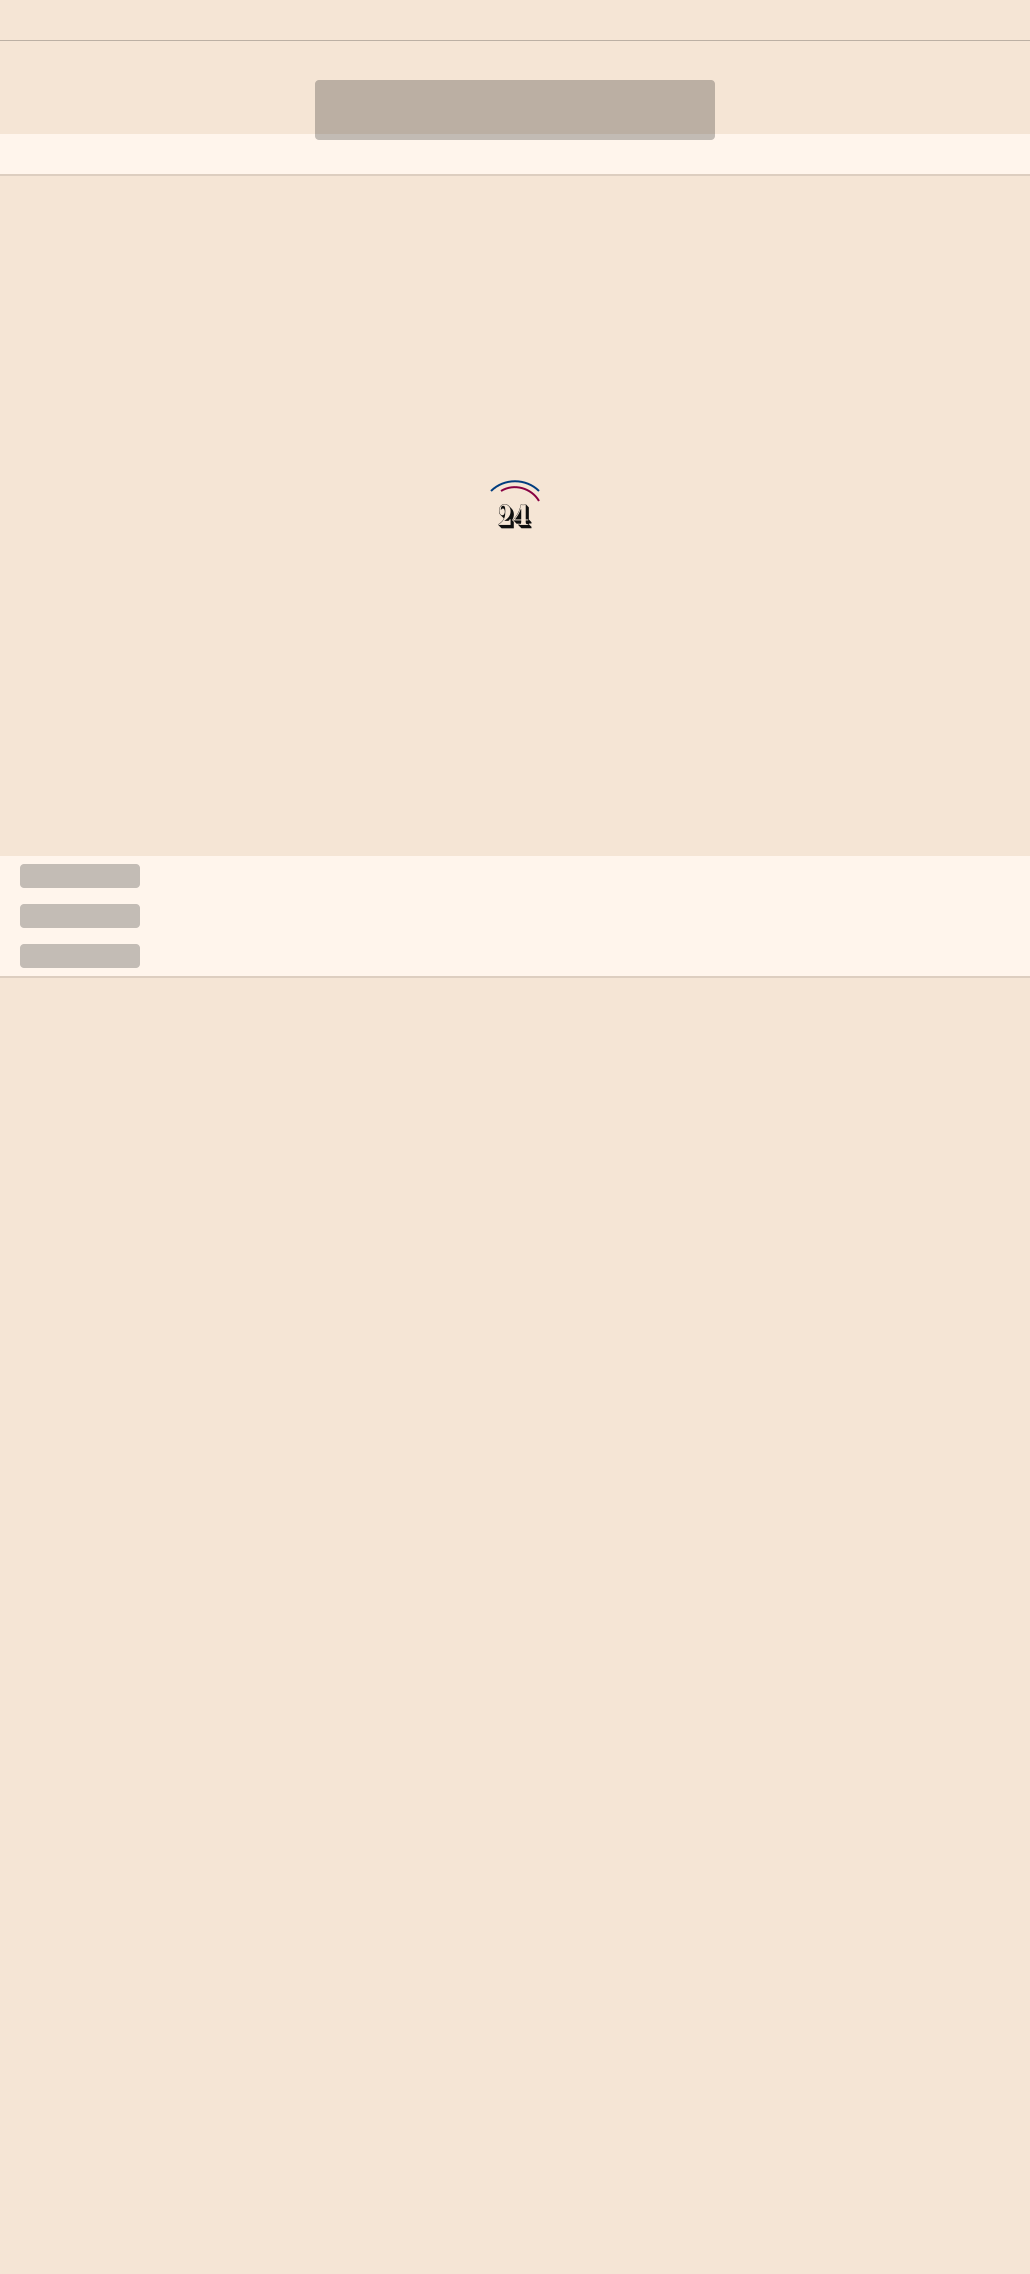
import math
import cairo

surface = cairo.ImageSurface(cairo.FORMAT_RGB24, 1030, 2274)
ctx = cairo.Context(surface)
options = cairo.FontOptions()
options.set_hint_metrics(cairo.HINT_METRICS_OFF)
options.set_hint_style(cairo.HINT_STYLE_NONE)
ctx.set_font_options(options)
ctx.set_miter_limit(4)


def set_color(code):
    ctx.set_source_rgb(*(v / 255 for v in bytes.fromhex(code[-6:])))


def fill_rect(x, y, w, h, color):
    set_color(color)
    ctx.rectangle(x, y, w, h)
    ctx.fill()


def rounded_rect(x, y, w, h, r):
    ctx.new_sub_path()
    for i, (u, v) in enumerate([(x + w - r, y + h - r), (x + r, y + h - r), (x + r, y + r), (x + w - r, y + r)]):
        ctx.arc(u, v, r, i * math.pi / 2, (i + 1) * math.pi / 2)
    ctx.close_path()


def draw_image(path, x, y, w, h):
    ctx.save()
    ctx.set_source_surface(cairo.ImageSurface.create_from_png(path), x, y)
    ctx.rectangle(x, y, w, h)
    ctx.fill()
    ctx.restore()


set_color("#f5e5d5")
ctx.paint()
fill_rect(0, 174, 1030, 2, "#ddcec0")
fill_rect(0, 134, 1030, 40, "#fff5ec")
fill_rect(0, 40, 1030, 1, "#bcb0a4")
ctx.set_source_rgba(0.059, 0.059, 0.059, 0.25)
rounded_rect(315, 80, 400, 60, 4)
ctx.fill()
ctx.new_path()
ctx.move_to(491, 491)
ctx.curve_to(504, 478, 526, 478, 539, 491)
set_color("#003c7f")
ctx.stroke()
ctx.new_path()
ctx.move_to(501, 491)
ctx.curve_to(514, 483, 531.5, 488, 539, 501)
set_color("#870042")
ctx.stroke()
draw_image("assets/img1.png", 498, 504, 34, 25)
fill_rect(0, 856, 1030, 120, "#fff5ec")
set_color("#c3bcb5")
rounded_rect(20, 864, 120, 24, 4)
ctx.fill()
rounded_rect(20, 904, 120, 24, 4)
ctx.fill()
fill_rect(0, 976, 1030, 2, "#ddcec0")
set_color("#c3bcb5")
rounded_rect(20, 944, 120, 24, 4)
ctx.fill()
surface.write_to_png("output.png")
